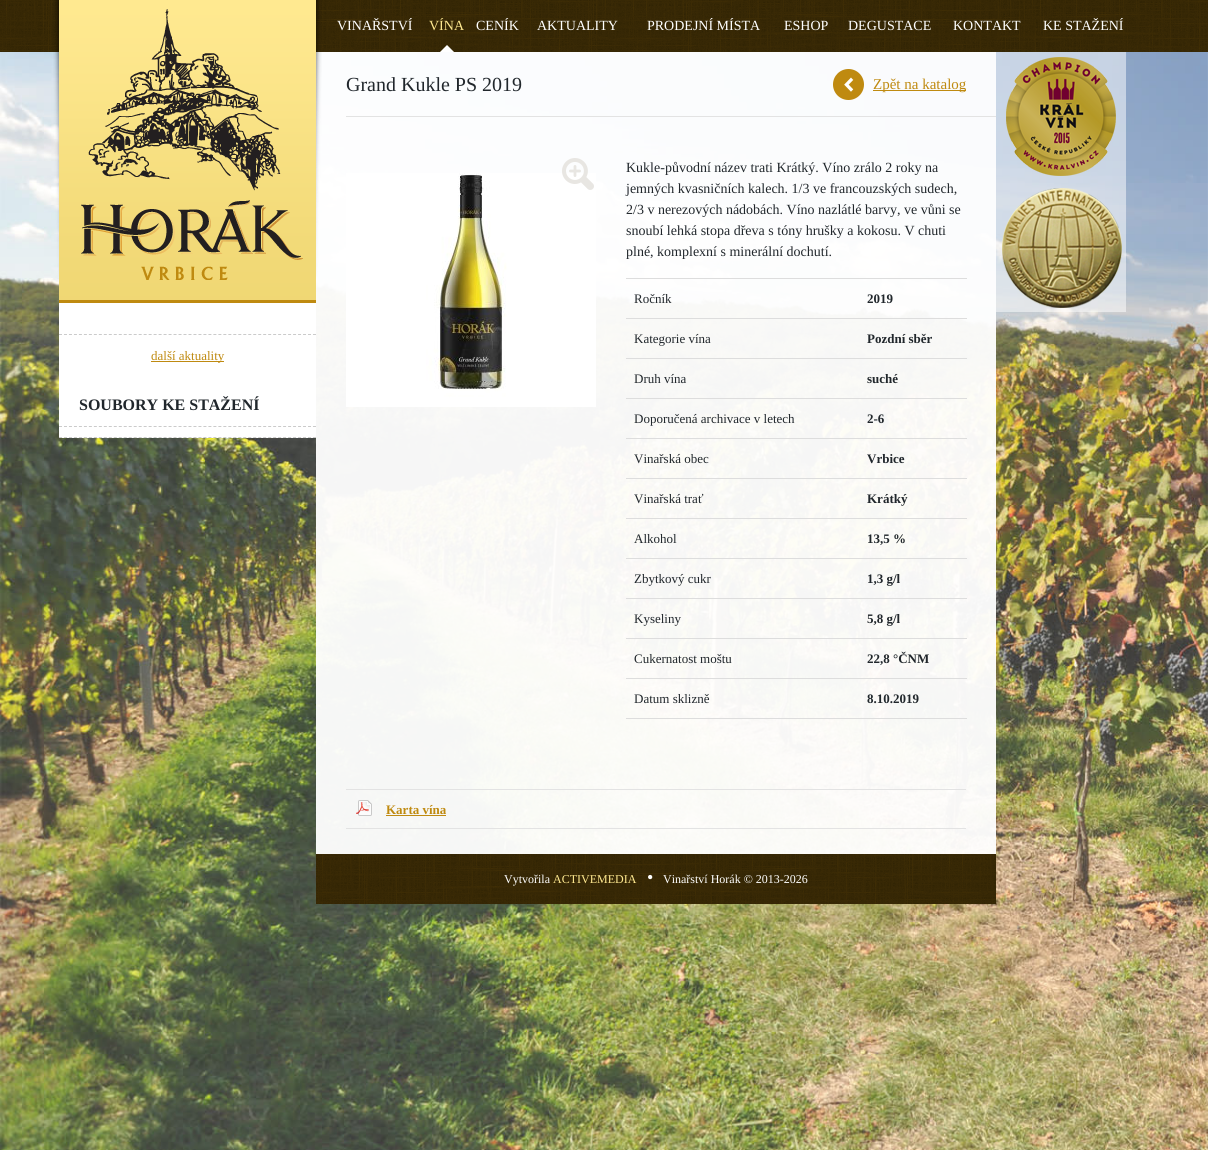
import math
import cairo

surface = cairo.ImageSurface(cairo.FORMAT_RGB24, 1208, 1150)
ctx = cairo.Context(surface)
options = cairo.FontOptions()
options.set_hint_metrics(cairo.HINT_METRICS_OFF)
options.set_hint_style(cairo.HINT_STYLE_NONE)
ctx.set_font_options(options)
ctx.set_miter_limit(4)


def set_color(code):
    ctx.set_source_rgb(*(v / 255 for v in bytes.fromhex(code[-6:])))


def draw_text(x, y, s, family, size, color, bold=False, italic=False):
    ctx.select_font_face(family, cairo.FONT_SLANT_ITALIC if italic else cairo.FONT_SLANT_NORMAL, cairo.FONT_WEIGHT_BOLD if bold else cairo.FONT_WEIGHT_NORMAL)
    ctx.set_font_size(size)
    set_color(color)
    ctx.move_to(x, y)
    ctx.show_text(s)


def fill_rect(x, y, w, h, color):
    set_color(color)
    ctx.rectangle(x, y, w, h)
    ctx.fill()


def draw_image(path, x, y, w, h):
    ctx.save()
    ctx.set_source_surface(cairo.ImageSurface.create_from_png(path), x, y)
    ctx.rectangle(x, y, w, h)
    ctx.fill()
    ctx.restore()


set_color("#ffffff")
ctx.paint()
draw_image("assets/img1.png", 1207, 52, 1, 1098)
draw_image("assets/img3.png", 0, 0, 1208, 52)
draw_image("assets/img4.png", 0, 52, 1208, 1098)
ctx.set_source_rgba(1, 1, 1, 0.95)
ctx.rectangle(316, 52, 680, 802)
ctx.fill()
draw_image("assets/img2.png", 53, 0, 269, 303)
draw_text(337, 30, "VINAŘSTVÍ", "Liberation Serif", 14, "#ffffff")
draw_text(429, 30, "VÍNA", "Liberation Serif", 14, "#ffe990")
set_color("#ffffff")
ctx.new_path()
ctx.move_to(454, 52)
ctx.line_to(440, 52)
ctx.line_to(447, 45)
ctx.close_path()
ctx.fill()
draw_text(476, 30, "CENÍK", "Liberation Serif", 14, "#ffffff")
draw_text(537, 30, "AKTUALITY", "Liberation Serif", 14, "#ffffff")
draw_text(647, 30, "PRODEJNÍ MÍSTA", "Liberation Serif", 14, "#ffffff")
draw_text(784, 30, "ESHOP", "Liberation Serif", 14, "#ffffff")
draw_text(848, 30, "DEGUSTACE", "Liberation Serif", 14, "#ffffff")
draw_text(953, 30, "KONTAKT", "Liberation Serif", 14, "#ffffff")
draw_text(1043, 30, "KE STAŽENÍ", "Liberation Serif", 14, "#ffffff")
fill_rect(59, 303, 257, 135, "#ffffff")
ctx.new_path()
ctx.move_to(59, 334.5)
ctx.line_to(316, 334.5)
set_color("#cbcbcb")
ctx.set_line_width(1)
ctx.set_dash([3, 1.98])
ctx.stroke()
fill_rect(151, 361, 73, 1, "#bf8a10")
draw_text(151, 360, "další aktuality", "Liberation Serif", 13, "#bf8a10")
ctx.new_path()
ctx.move_to(59, 426.5)
ctx.line_to(316, 426.5)
set_color("#cbcbcb")
ctx.stroke()
draw_text(79, 410, "SOUBORY KE STAŽENÍ", "Liberation Serif", 16, "#21272c", bold=True)
ctx.new_path()
ctx.move_to(59, 437.5)
ctx.line_to(316, 437.5)
set_color("#cbcbcb")
ctx.stroke()
fill_rect(346, 116, 650, 1, "#e3e3e3")
draw_text(346, 91, "Grand Kukle PS 2019", "Liberation Serif", 20, "#21272c")
draw_image("assets/img5.png", 833, 69, 31, 31)
fill_rect(873, 90, 93, 1, "#bf8a10")
draw_text(873, 89, "Zpět na katalog", "Liberation Serif", 15, "#bf8a10")
draw_image("assets/img7.png", 346, 173, 250, 234)
draw_image("assets/img6.png", 562, 158, 32, 32)
draw_text(626, 172, "Kukle-původní název trati Krátký. Víno zrálo 2 roky na", "Liberation Serif", 14, "#21272c")
draw_text(626, 193, "jemných kvasničních kalech. 1/3 ve francouzských sudech,", "Liberation Serif", 14, "#21272c")
draw_text(626, 214, "2/3 v nerezových nádobách. Víno nazlátlé barvy, ve vůni se", "Liberation Serif", 14, "#21272c")
draw_text(626, 235, "snoubí lehká stopa dřeva s tóny hrušky a kokosu. V chuti", "Liberation Serif", 14, "#21272c")
draw_text(626, 256, "plné, komplexní s minerální dochutí.", "Liberation Serif", 14, "#21272c")
fill_rect(626, 278, 341, 1, "#dddddd")
draw_text(634, 303, "Ročník", "Liberation Serif", 13, "#21272c")
draw_text(867, 303, "2019", "Liberation Serif", 13, "#21272c", bold=True)
fill_rect(626, 318, 341, 1, "#dddddd")
draw_text(634, 343, "Kategorie vína", "Liberation Serif", 13, "#21272c")
draw_text(867, 343, "Pozdní sběr", "Liberation Serif", 13, "#21272c", bold=True)
fill_rect(626, 358, 341, 1, "#dddddd")
draw_text(634, 383, "Druh vína", "Liberation Serif", 13, "#21272c")
draw_text(867, 383, "suché", "Liberation Serif", 13, "#21272c", bold=True)
fill_rect(626, 398, 341, 1, "#dddddd")
draw_text(634, 423, "Doporučená archivace v letech", "Liberation Serif", 13, "#21272c")
draw_text(867, 423, "2-6", "Liberation Serif", 13, "#21272c", bold=True)
fill_rect(626, 438, 341, 1, "#dddddd")
draw_text(634, 463, "Vinařská obec", "Liberation Serif", 13, "#21272c")
draw_text(867, 463, "Vrbice", "Liberation Serif", 13, "#21272c", bold=True)
fill_rect(626, 478, 341, 1, "#dddddd")
draw_text(634, 503, "Vinařská trať", "Liberation Serif", 13, "#21272c")
draw_text(867, 503, "Krátký", "Liberation Serif", 13, "#21272c", bold=True)
fill_rect(626, 518, 341, 1, "#dddddd")
draw_text(634, 543, "Alkohol", "Liberation Serif", 13, "#21272c")
draw_text(867, 543, "13,5 %", "Liberation Serif", 13, "#21272c", bold=True)
fill_rect(626, 558, 341, 1, "#dddddd")
draw_text(634, 583, "Zbytkový cukr", "Liberation Serif", 13, "#21272c")
draw_text(867, 583, "1,3 g/l", "Liberation Serif", 13, "#21272c", bold=True)
fill_rect(626, 598, 341, 1, "#dddddd")
draw_text(634, 623, "Kyseliny", "Liberation Serif", 13, "#21272c")
draw_text(867, 623, "5,8 g/l", "Liberation Serif", 13, "#21272c", bold=True)
fill_rect(626, 638, 341, 1, "#dddddd")
draw_text(634, 663, "Cukernatost moštu", "Liberation Serif", 13, "#21272c")
draw_text(867, 663, "22,8 °ČNM", "Liberation Serif", 13, "#21272c", bold=True)
fill_rect(626, 678, 341, 1, "#dddddd")
fill_rect(626, 718, 341, 1, "#dddddd")
draw_text(634, 703, "Datum sklizně", "Liberation Serif", 13, "#21272c")
draw_text(867, 703, "8.10.2019", "Liberation Serif", 13, "#21272c", bold=True)
fill_rect(346, 789, 620, 1, "#e3e3e3")
fill_rect(346, 828, 620, 1, "#e3e3e3")
draw_image("assets/img8.png", 356, 800, 16, 16)
draw_text(386, 814, "Karta vína", "Liberation Serif", 13, "#bf8a10", bold=True)
fill_rect(386, 815, 60, 1, "#bf8a10")
ctx.set_source_rgba(1, 1, 1, 0.5)
ctx.rectangle(996, 52, 130, 260)
ctx.fill()
draw_image("assets/img9.png", 1006, 57, 110, 119)
draw_image("assets/img10.png", 1002, 188, 120, 120)
draw_image("assets/img11.png", 316, 854, 680, 50)
draw_text(504, 883, "Vytvořila", "Liberation Serif", 12, "#ffffff")
draw_text(553, 883, "ACTIVEMEDIA", "Liberation Serif", 12, "#ffe990")
draw_text(647, 883, "•", "Liberation Serif", 18, "#ffffff")
draw_text(663, 883, "Vinařství Horák © 2013-2026", "Liberation Serif", 12, "#ffffff")
surface.write_to_png("output.png")
